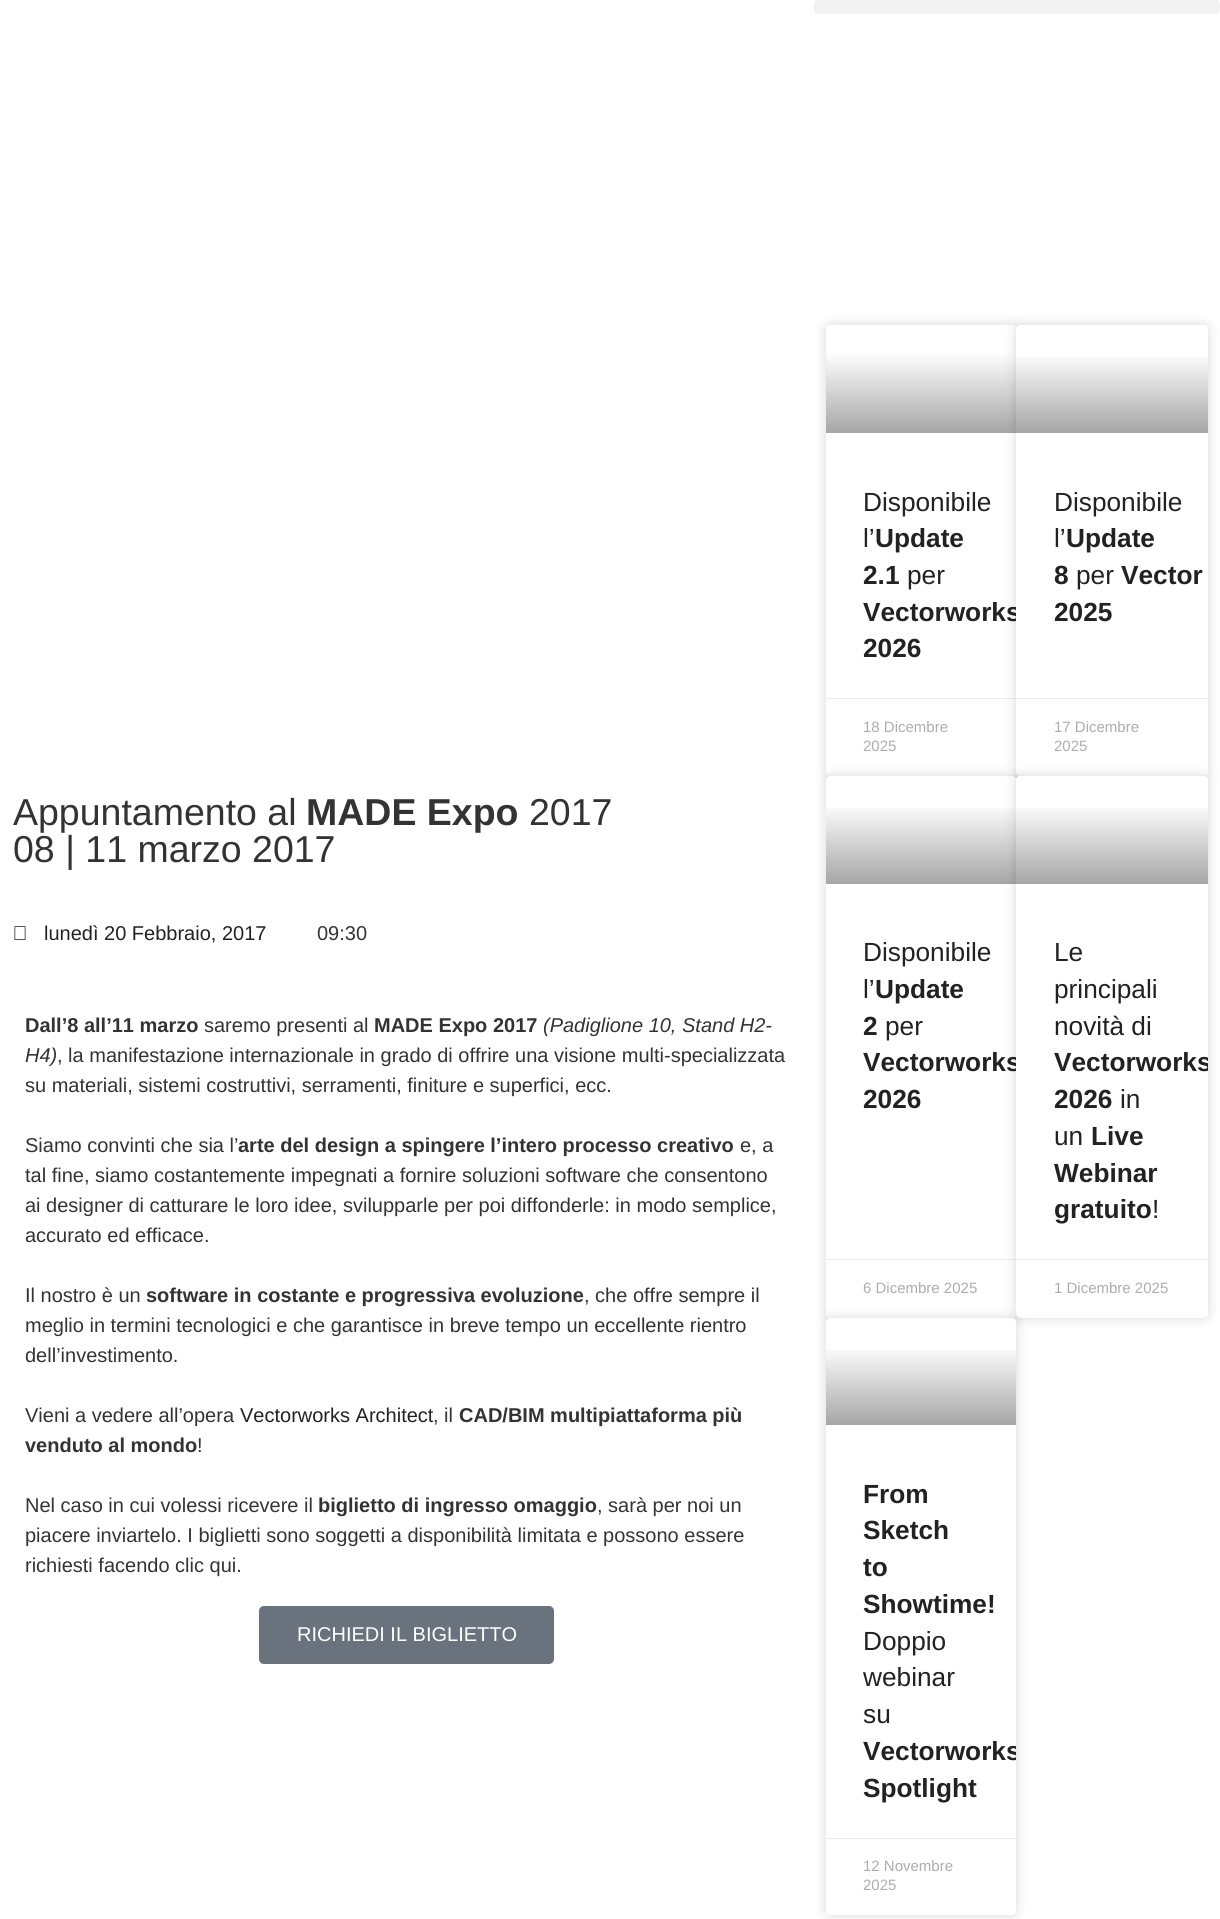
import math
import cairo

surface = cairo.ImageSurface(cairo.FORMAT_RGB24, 1220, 1919)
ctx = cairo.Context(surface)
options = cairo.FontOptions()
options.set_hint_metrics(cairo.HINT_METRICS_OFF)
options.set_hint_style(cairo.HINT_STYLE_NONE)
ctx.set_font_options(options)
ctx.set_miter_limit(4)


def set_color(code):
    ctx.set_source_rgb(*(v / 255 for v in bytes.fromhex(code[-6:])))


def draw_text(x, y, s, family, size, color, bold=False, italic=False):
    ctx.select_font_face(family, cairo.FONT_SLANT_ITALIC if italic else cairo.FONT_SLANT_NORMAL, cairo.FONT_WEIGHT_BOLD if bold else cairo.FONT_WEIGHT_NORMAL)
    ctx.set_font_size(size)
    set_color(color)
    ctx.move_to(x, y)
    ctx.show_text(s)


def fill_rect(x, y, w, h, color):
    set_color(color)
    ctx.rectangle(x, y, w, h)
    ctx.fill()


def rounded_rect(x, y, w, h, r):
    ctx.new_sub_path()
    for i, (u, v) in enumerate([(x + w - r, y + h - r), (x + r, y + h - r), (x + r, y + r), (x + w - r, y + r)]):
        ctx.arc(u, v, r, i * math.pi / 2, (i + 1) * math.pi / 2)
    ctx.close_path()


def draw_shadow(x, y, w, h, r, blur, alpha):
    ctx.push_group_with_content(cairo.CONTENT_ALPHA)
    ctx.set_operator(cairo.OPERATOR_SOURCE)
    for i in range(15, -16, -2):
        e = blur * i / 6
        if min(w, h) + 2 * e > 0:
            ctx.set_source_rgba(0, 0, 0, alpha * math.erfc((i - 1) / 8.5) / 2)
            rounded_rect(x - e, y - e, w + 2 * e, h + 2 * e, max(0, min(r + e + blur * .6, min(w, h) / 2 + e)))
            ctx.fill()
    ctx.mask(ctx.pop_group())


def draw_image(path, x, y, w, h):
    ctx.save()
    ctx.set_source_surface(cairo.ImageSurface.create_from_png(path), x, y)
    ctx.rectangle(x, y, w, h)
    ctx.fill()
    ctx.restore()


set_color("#ffffff")
ctx.paint()
set_color("#f2f2f2")
rounded_rect(814, 0, 406, 14, 4)
ctx.fill()
draw_text(13, 825, "Appuntamento al", "Liberation Sans", 37.5, "#333333")
draw_text(306, 825, "MADE Expo", "Liberation Sans", 37.5, "#333333", bold=True)
draw_text(529, 825, "2017", "Liberation Sans", 37.5, "#333333")
draw_text(13, 862, "08 | 11 marzo 2017", "Liberation Sans", 37.5, "#333333")
draw_image("assets/img1.png", 14, 926, 12, 14)
draw_text(44, 940, "lunedì 20 Febbraio, 2017", "Liberation Sans", 20, "#222222")
draw_text(317, 940, "09:30", "Liberation Sans", 20, "#333333")
draw_text(25, 1032, "Dall’8 all’11 marzo", "Liberation Sans", 20, "#333333", bold=True)
draw_text(204, 1032, "saremo presenti al", "Liberation Sans", 20, "#333333")
draw_text(374, 1032, "MADE Expo 2017", "Liberation Sans", 20, "#333333", bold=True)
draw_text(543, 1032, "(Padiglione 10, Stand H2-", "Liberation Sans", 20, "#333333", italic=True)
draw_text(25, 1062, "H4)", "Liberation Sans", 20, "#333333", italic=True)
draw_text(57, 1062, ", la manifestazione internazionale in grado di offrire una visione multi-specializzata", "Liberation Sans", 20, "#333333")
draw_text(25, 1092, "su materiali, sistemi costruttivi, serramenti, finiture e superfici, ecc.", "Liberation Sans", 20, "#333333")
draw_text(25, 1152, "Siamo convinti che sia l’", "Liberation Sans", 20, "#333333")
draw_text(238, 1152, "arte del design a spingere l’intero processo creativo", "Liberation Sans", 20, "#333333", bold=True)
draw_text(740, 1152, "e, a", "Liberation Sans", 20, "#333333")
draw_text(25, 1182, "tal fine, siamo costantemente impegnati a fornire soluzioni software che consentono", "Liberation Sans", 20, "#333333")
draw_text(25, 1212, "ai designer di catturare le loro idee, svilupparle per poi diffonderle: in modo semplice,", "Liberation Sans", 20, "#333333")
draw_text(25, 1242, "accurato ed efficace.", "Liberation Sans", 20, "#333333")
draw_text(25, 1302, "Il nostro è un", "Liberation Sans", 20, "#333333")
draw_text(146, 1302, "software in costante e progressiva evoluzione", "Liberation Sans", 20, "#333333", bold=True)
draw_text(584, 1302, ", che offre sempre il", "Liberation Sans", 20, "#333333")
draw_text(25, 1332, "meglio in termini tecnologici e che garantisce in breve tempo un eccellente rientro", "Liberation Sans", 20, "#333333")
draw_text(25, 1362, "dell’investimento.", "Liberation Sans", 20, "#333333")
draw_text(25, 1422, "Vieni a vedere all’opera", "Liberation Sans", 20, "#333333")
draw_text(240, 1422, "Vectorworks Architect", "Liberation Sans", 20, "#222222")
draw_text(433, 1422, ", il", "Liberation Sans", 20, "#333333")
draw_text(459, 1422, "CAD/BIM multipiattaforma più", "Liberation Sans", 20, "#333333", bold=True)
draw_text(25, 1452, "venduto al mondo", "Liberation Sans", 20, "#333333", bold=True)
draw_text(197, 1452, "!", "Liberation Sans", 20, "#333333")
draw_text(25, 1512, "Nel caso in cui volessi ricevere il", "Liberation Sans", 20, "#333333")
draw_text(318, 1512, "biglietto di ingresso omaggio", "Liberation Sans", 20, "#333333", bold=True)
draw_text(597, 1512, ", sarà per noi un", "Liberation Sans", 20, "#333333")
draw_text(25, 1542, "piacere inviartelo. I biglietti sono soggetti a disponibilità limitata e possono essere", "Liberation Sans", 20, "#333333")
draw_text(25, 1572, "richiesti facendo clic qui.", "Liberation Sans", 20, "#333333")
set_color("#69727d")
rounded_rect(259, 1606, 295, 58, 5)
ctx.fill()
draw_text(297, 1641, "RICHIEDI IL BIGLIETTO", "Liberation Sans", 20, "#ffffff")
set_color("#000000")
draw_shadow(826, 325, 190, 451, 4, 6, 0.15)
set_color("#ffffff")
rounded_rect(826, 325, 190, 451, 4)
ctx.fill()
gradient = cairo.LinearGradient(921, 433, 921, 325)
gradient.add_color_stop_rgba(0, 0.651, 0.651, 0.651, 1)
gradient.add_color_stop_rgba(0.75, 1, 1, 1, 1)
ctx.set_source(gradient)
ctx.new_path()
ctx.move_to(830, 325)
ctx.line_to(1012, 325)
ctx.curve_to(1014, 325, 1016, 327, 1016, 329)
ctx.line_to(1016, 433)
ctx.line_to(826, 433)
ctx.line_to(826, 329)
ctx.curve_to(826, 327, 828, 325, 830, 325)
ctx.close_path()
ctx.fill()
draw_text(863, 511, "Disponibile", "Liberation Sans", 26.25, "#222222")
draw_text(863, 547, "l’", "Liberation Sans", 26.25, "#222222")
draw_text(875, 547, "Update", "Liberation Sans", 26.25, "#222222", bold=True)
draw_text(863, 584, "2.1", "Liberation Sans", 26.25, "#222222", bold=True)
draw_text(907, 584, "per", "Liberation Sans", 26.25, "#222222")
draw_text(863, 621, "Vectorworks", "Liberation Sans", 26.25, "#222222", bold=True)
draw_text(863, 657, "2026", "Liberation Sans", 26.25, "#222222", bold=True)
fill_rect(826, 698, 190, 1, "#eaeaea")
draw_text(863, 732, "18 Dicembre", "Liberation Sans", 15, "#adadad")
draw_text(863, 751, "2025", "Liberation Sans", 15, "#adadad")
set_color("#000000")
draw_shadow(1016, 325, 192, 451, 4, 6, 0.15)
set_color("#ffffff")
rounded_rect(1016, 325, 192, 451, 4)
ctx.fill()
gradient = cairo.LinearGradient(1112, 433, 1112, 325)
gradient.add_color_stop_rgba(0, 0, 0, 0, 0.35)
gradient.add_color_stop_rgba(0.75, 0, 0, 0, 0)
ctx.set_source(gradient)
ctx.rectangle(1016, 357, 192, 76)
ctx.fill()
draw_text(1054, 511, "Disponibile", "Liberation Sans", 26.25, "#222222")
draw_text(1054, 547, "l’", "Liberation Sans", 26.25, "#222222")
draw_text(1066, 547, "Update", "Liberation Sans", 26.25, "#222222", bold=True)
draw_text(1054, 584, "8", "Liberation Sans", 26.25, "#222222", bold=True)
draw_text(1076, 584, "per", "Liberation Sans", 26.25, "#222222")
draw_text(1121, 584, "Vector", "Liberation Sans", 26.25, "#222222", bold=True)
draw_text(1054, 621, "2025", "Liberation Sans", 26.25, "#222222", bold=True)
fill_rect(1016, 698, 192, 1, "#eaeaea")
draw_text(1054, 732, "17 Dicembre", "Liberation Sans", 15, "#adadad")
draw_text(1054, 751, "2025", "Liberation Sans", 15, "#adadad")
set_color("#000000")
draw_shadow(826, 776, 190, 542, 4, 6, 0.15)
set_color("#ffffff")
rounded_rect(826, 776, 190, 542, 4)
ctx.fill()
gradient = cairo.LinearGradient(921, 884, 921, 776)
gradient.add_color_stop_rgba(0, 0, 0, 0, 0.35)
gradient.add_color_stop_rgba(0.75, 0, 0, 0, 0)
ctx.set_source(gradient)
ctx.rectangle(826, 808, 190, 76)
ctx.fill()
draw_text(863, 961, "Disponibile", "Liberation Sans", 26.25, "#222222")
draw_text(863, 998, "l’", "Liberation Sans", 26.25, "#222222")
draw_text(875, 998, "Update", "Liberation Sans", 26.25, "#222222", bold=True)
draw_text(863, 1035, "2", "Liberation Sans", 26.25, "#222222", bold=True)
draw_text(885, 1035, "per", "Liberation Sans", 26.25, "#222222")
draw_text(863, 1071, "Vectorworks", "Liberation Sans", 26.25, "#222222", bold=True)
draw_text(863, 1108, "2026", "Liberation Sans", 26.25, "#222222", bold=True)
fill_rect(826, 1259, 190, 1, "#eaeaea")
draw_text(863, 1293, "6 Dicembre 2025", "Liberation Sans", 15, "#adadad")
set_color("#000000")
draw_shadow(1016, 776, 192, 542, 4, 6, 0.15)
set_color("#ffffff")
rounded_rect(1016, 776, 192, 542, 4)
ctx.fill()
gradient = cairo.LinearGradient(1112, 884, 1112, 776)
gradient.add_color_stop_rgba(0, 0, 0, 0, 0.35)
gradient.add_color_stop_rgba(0.75, 0, 0, 0, 0)
ctx.set_source(gradient)
ctx.rectangle(1016, 808, 192, 76)
ctx.fill()
draw_text(1054, 961, "Le", "Liberation Sans", 26.25, "#222222")
draw_text(1054, 998, "principali", "Liberation Sans", 26.25, "#222222")
draw_text(1054, 1035, "novità di", "Liberation Sans", 26.25, "#222222")
ctx.save()
rounded_rect(1016, 776, 192, 542, 4)
ctx.clip()
draw_text(1054, 1071, "Vectorworks", "Liberation Sans", 26.25, "#222222", bold=True)
ctx.restore()
draw_text(1054, 1108, "2026", "Liberation Sans", 26.25, "#222222", bold=True)
draw_text(1120, 1108, "in", "Liberation Sans", 26.25, "#222222")
draw_text(1054, 1145, "un", "Liberation Sans", 26.25, "#222222")
draw_text(1091, 1145, "Live", "Liberation Sans", 26.25, "#222222", bold=True)
draw_text(1054, 1182, "Webinar", "Liberation Sans", 26.25, "#222222", bold=True)
draw_text(1054, 1218, "gratuito", "Liberation Sans", 26.25, "#222222", bold=True)
draw_text(1152, 1218, "!", "Liberation Sans", 26.25, "#222222")
fill_rect(1016, 1259, 192, 1, "#eaeaea")
draw_text(1054, 1293, "1 Dicembre 2025", "Liberation Sans", 15, "#adadad")
set_color("#000000")
draw_shadow(826, 1318, 190, 597, 4, 6, 0.15)
set_color("#ffffff")
rounded_rect(826, 1318, 190, 597, 4)
ctx.fill()
gradient = cairo.LinearGradient(921, 1425, 921, 1318)
gradient.add_color_stop_rgba(0, 0, 0, 0, 0.35)
gradient.add_color_stop_rgba(0.75, 0, 0, 0, 0)
ctx.set_source(gradient)
ctx.rectangle(826, 1350, 190, 75)
ctx.fill()
draw_text(863, 1503, "From", "Liberation Sans", 26.25, "#222222", bold=True)
draw_text(863, 1539, "Sketch", "Liberation Sans", 26.25, "#222222", bold=True)
draw_text(863, 1576, "to", "Liberation Sans", 26.25, "#222222", bold=True)
draw_text(863, 1613, "Showtime!", "Liberation Sans", 26.25, "#222222", bold=True)
draw_text(863, 1650, "Doppio", "Liberation Sans", 26.25, "#222222")
draw_text(863, 1686, "webinar", "Liberation Sans", 26.25, "#222222")
draw_text(863, 1723, "su", "Liberation Sans", 26.25, "#222222")
ctx.save()
rounded_rect(826, 1318, 190, 597, 4)
ctx.clip()
draw_text(863, 1760, "Vectorworks", "Liberation Sans", 26.25, "#222222", bold=True)
ctx.restore()
draw_text(863, 1797, "Spotlight", "Liberation Sans", 26.25, "#222222", bold=True)
fill_rect(826, 1838, 190, 1, "#eaeaea")
draw_text(863, 1871, "12 Novembre", "Liberation Sans", 15, "#adadad")
draw_text(863, 1890, "2025", "Liberation Sans", 15, "#adadad")
surface.write_to_png("output.png")
